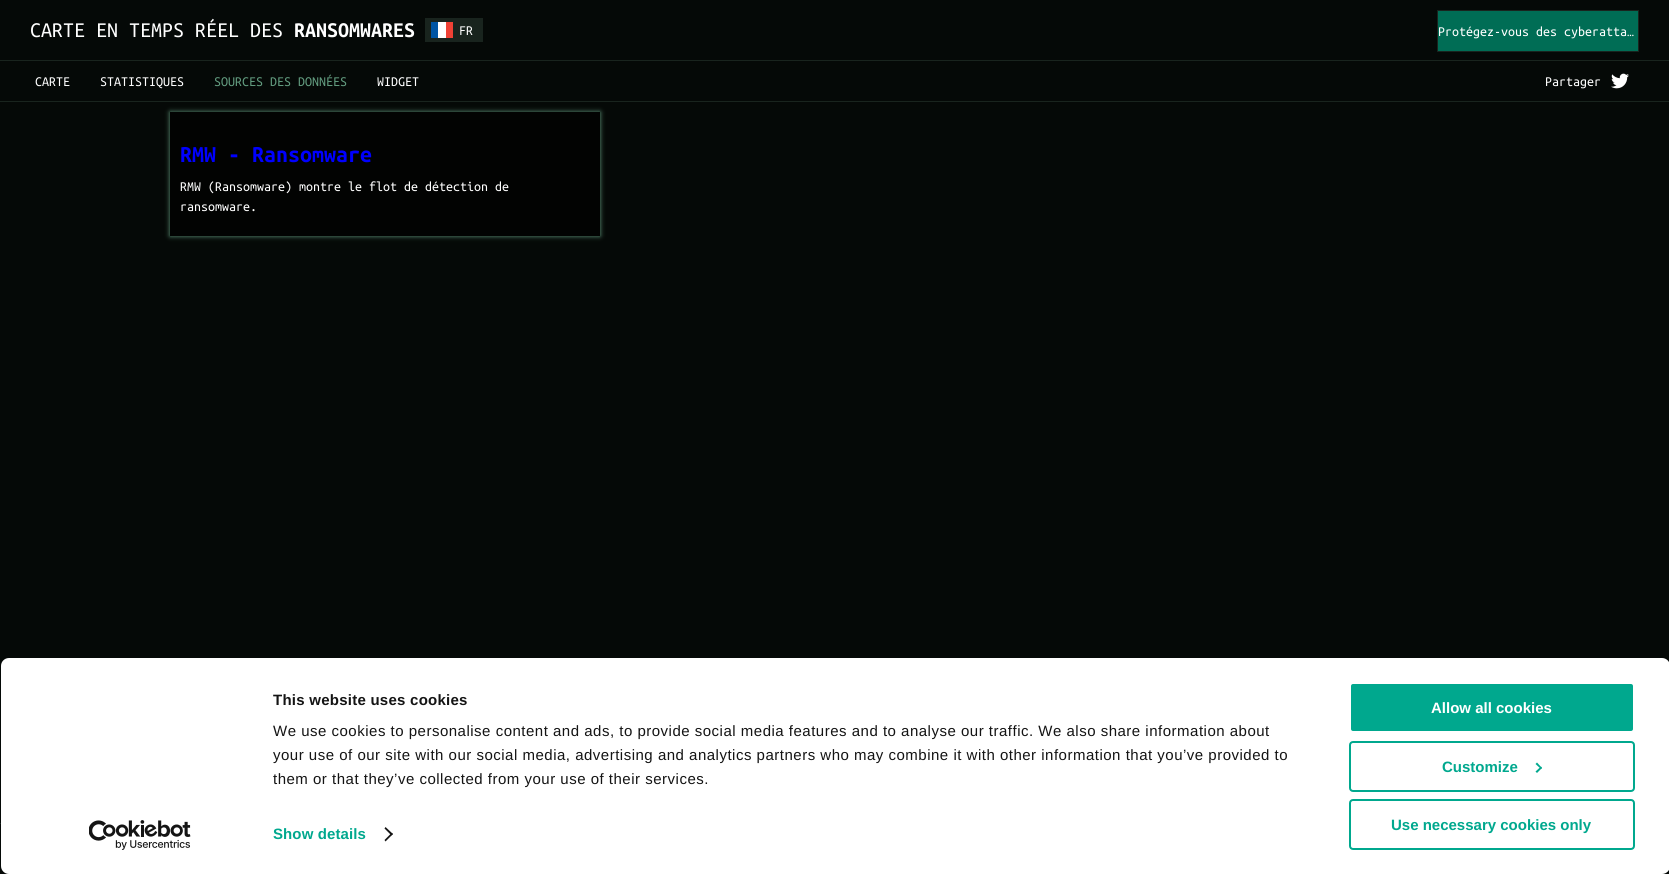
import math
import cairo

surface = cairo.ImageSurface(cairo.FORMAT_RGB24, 1669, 874)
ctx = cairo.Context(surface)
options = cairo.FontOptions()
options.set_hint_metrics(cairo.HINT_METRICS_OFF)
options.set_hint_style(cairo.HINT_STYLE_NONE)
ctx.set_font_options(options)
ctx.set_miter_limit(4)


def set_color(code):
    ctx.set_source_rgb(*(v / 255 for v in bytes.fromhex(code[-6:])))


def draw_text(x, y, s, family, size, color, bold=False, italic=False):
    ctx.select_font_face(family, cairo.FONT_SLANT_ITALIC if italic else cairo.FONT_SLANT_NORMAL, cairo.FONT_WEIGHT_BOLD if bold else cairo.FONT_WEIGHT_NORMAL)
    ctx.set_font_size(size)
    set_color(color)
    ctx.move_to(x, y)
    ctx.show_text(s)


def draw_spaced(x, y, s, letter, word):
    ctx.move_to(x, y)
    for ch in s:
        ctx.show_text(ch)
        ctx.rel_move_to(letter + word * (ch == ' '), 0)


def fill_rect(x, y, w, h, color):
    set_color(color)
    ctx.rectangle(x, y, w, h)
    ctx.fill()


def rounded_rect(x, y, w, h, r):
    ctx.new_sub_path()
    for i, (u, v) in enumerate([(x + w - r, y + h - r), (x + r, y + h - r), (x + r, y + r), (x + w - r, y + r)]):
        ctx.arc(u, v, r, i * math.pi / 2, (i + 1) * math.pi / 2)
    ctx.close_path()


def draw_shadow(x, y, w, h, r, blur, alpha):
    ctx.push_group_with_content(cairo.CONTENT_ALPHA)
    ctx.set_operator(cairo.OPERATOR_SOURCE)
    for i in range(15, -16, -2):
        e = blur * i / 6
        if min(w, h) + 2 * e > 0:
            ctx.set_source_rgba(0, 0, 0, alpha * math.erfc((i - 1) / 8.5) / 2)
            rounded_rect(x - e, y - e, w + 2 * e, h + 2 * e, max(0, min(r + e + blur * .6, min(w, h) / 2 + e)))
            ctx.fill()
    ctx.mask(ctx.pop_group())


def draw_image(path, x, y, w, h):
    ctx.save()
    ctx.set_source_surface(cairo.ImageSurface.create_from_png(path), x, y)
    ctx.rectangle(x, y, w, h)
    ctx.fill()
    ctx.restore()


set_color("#050907")
ctx.paint()
fill_rect(0, 60, 1669, 1, "#19241e")
draw_text(30, 37, "CARTE EN TEMPS RÉEL DES", "Ubuntu Mono", 22, "#ffffff")
draw_text(294, 37, "RANSOMWARES", "Ubuntu Mono", 22, "#ffffff", bold=True)
fill_rect(425, 18, 58, 24, "#19241e")
draw_image("assets/img1.png", 431, 22, 22, 16)
draw_text(459, 35, "FR", "Ubuntu Mono", 14, "#ffffff")
set_color("#006d55")
ctx.rectangle(1437.5, 10.5, 201, 41)
ctx.fill_preserve()
set_color("#19241e")
ctx.set_line_width(1)
ctx.stroke()
draw_text(1438, 36, "Protégez-vous des cyberatta…", "Ubuntu Mono", 14, "#ffffff")
fill_rect(0, 101, 1669, 1, "#19241e")
draw_text(35, 86, "CARTE", "Ubuntu Mono", 14, "#ffffff")
draw_text(100, 86, "STATISTIQUES", "Ubuntu Mono", 14, "#ffffff")
draw_text(214, 86, "SOURCES DES DONNÉES", "Ubuntu Mono", 14, "#629c7f")
draw_text(377, 86, "WIDGET", "Ubuntu Mono", 14, "#ffffff")
draw_text(1545, 86, "Partager", "Ubuntu Mono", 14, "#ffffff")
draw_image("assets/img2.png", 1611, 73, 18, 16)
set_color("#629c7f")
draw_shadow(170, 112, 430, 124, 0, 2.5, 1)
fill_rect(170, 112, 430, 124, "#020302")
draw_text(180, 162, "RMW - Ransomware", "Ubuntu Mono", 24, "#0000ff", bold=True)
draw_text(180, 191, "RMW (Ransomware) montre le flot de détection de", "Ubuntu Mono", 14, "#ffffff")
draw_text(180, 211, "ransomware.", "Ubuntu Mono", 14, "#ffffff")
fill_rect(0, 823, 1, 1, "#19241e")
set_color("#ffffff")
rounded_rect(1, 658, 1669, 216, 8)
ctx.fill()
draw_image("assets/img3.png", 89, 820, 102, 30)
ctx.save()
ctx.rectangle(273, 688, 1048, 103)
ctx.clip()
ctx.select_font_face("Liberation Sans", cairo.FONT_SLANT_NORMAL, cairo.FONT_WEIGHT_BOLD)
ctx.set_font_size(15)
set_color("#141414")
draw_spaced(273, 705, "This website uses cookies", 0.25, 0)
ctx.restore()
ctx.select_font_face("Liberation Sans")
ctx.set_font_size(15)
set_color("#141414")
draw_spaced(273, 736, "We use cookies to personalise content and ads, to provide social media features and to analyse our traffic. We also share information about", 0.5, 0)
draw_spaced(273, 760, "your use of our site with our social media, advertising and analytics partners who may combine it with other information that you’ve provided to", 0.5, 0)
draw_spaced(273, 784, "them or that they’ve collected from your use of their services.", 0.5, 0)
ctx.select_font_face("Liberation Sans", cairo.FONT_SLANT_NORMAL, cairo.FONT_WEIGHT_BOLD)
set_color("#00a88e")
draw_spaced(273, 839, "Show details", 0.1, 0)
set_color("#141414")
ctx.new_path()
ctx.move_to(385.5, 827)
ctx.line_to(393, 834)
ctx.line_to(391.5, 835.5)
ctx.line_to(384.5, 828.5)
ctx.close_path()
ctx.fill()
ctx.new_path()
ctx.move_to(391.5, 833)
ctx.line_to(393, 834)
ctx.line_to(385.5, 841.5)
ctx.line_to(384.5, 840)
ctx.close_path()
ctx.fill()
set_color("#00a88e")
rounded_rect(1350, 683, 284, 49, 3)
ctx.fill_preserve()
set_color("#ffffff")
ctx.set_line_width(2)
ctx.stroke()
draw_text(1431, 713, "Allow all cookies", "Liberation Sans", 15, "#ffffff", bold=True)
rounded_rect(1350, 742, 284, 49, 3)
set_color("#00a88e")
ctx.stroke()
draw_text(1442, 772, "Customize", "Liberation Sans", 15, "#00a88e", bold=True)
ctx.new_path()
ctx.move_to(1537, 762.5)
ctx.line_to(1542, 768)
ctx.line_to(1541, 769)
ctx.line_to(1535.5, 764)
ctx.close_path()
ctx.fill()
ctx.new_path()
ctx.move_to(1541, 766.5)
ctx.line_to(1542, 768)
ctx.line_to(1537, 773)
ctx.line_to(1535.5, 771.5)
ctx.close_path()
ctx.fill()
rounded_rect(1350, 800, 284, 49, 3)
ctx.stroke()
draw_text(1391, 830, "Use necessary cookies only", "Liberation Sans", 15, "#00a88e", bold=True)
surface.write_to_png("output.png")
